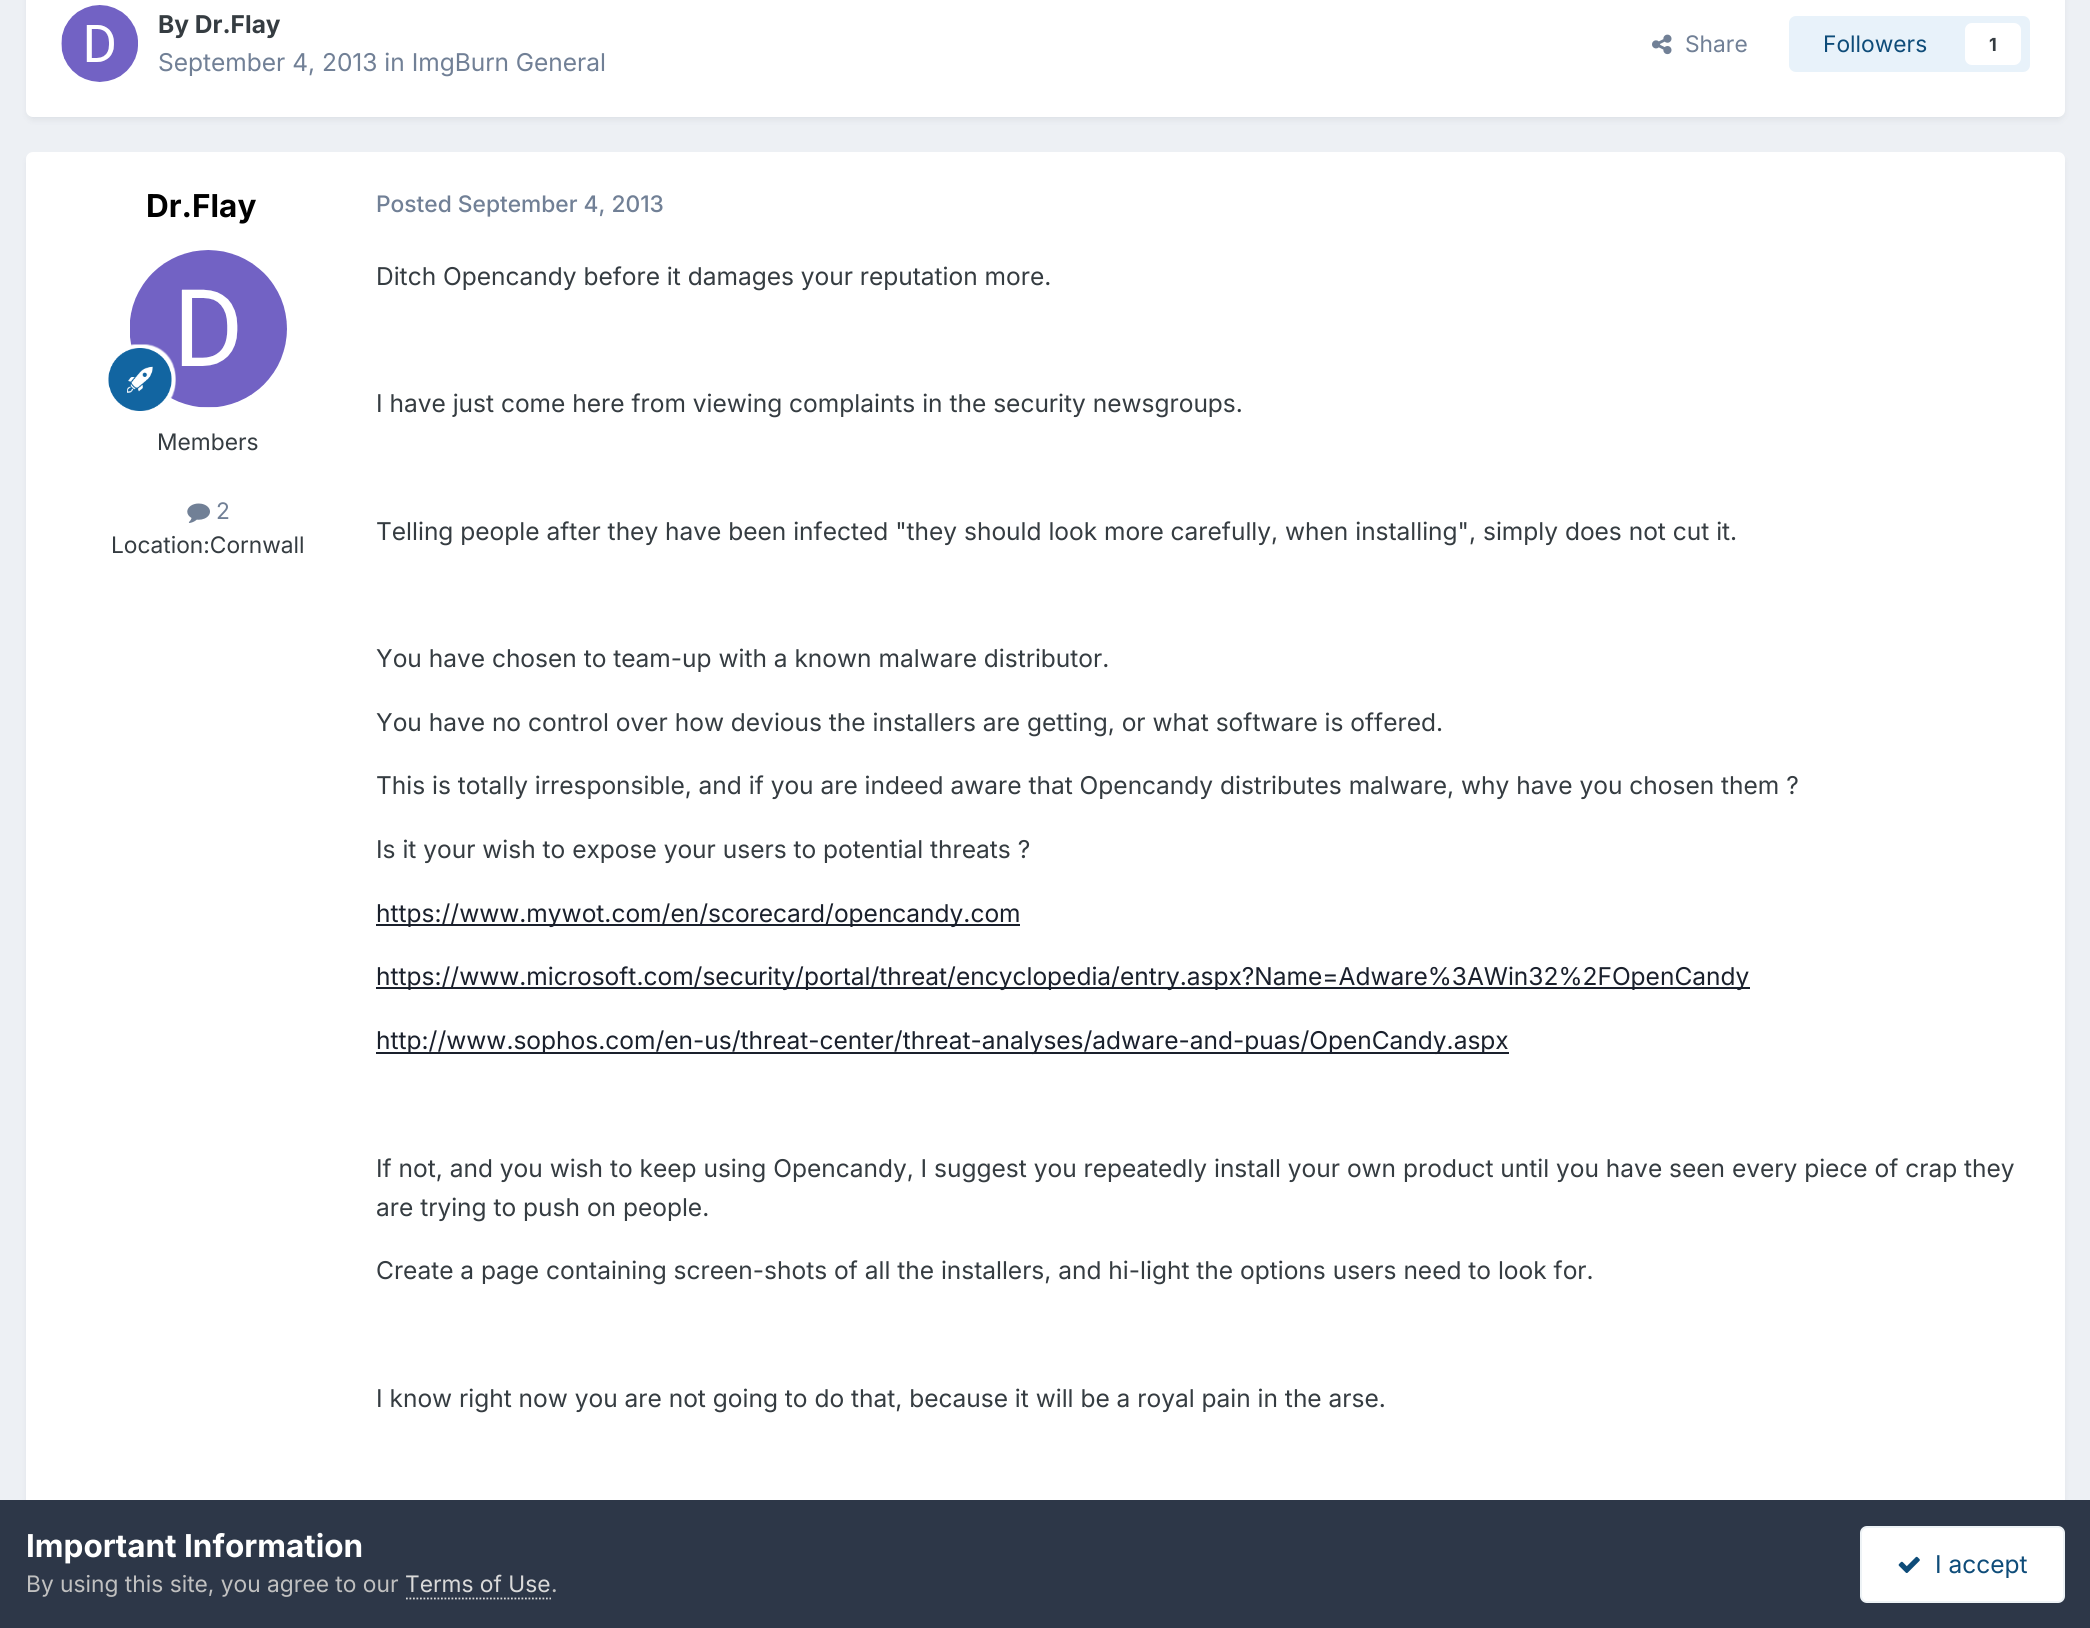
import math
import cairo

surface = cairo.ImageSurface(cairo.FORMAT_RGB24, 2090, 1628)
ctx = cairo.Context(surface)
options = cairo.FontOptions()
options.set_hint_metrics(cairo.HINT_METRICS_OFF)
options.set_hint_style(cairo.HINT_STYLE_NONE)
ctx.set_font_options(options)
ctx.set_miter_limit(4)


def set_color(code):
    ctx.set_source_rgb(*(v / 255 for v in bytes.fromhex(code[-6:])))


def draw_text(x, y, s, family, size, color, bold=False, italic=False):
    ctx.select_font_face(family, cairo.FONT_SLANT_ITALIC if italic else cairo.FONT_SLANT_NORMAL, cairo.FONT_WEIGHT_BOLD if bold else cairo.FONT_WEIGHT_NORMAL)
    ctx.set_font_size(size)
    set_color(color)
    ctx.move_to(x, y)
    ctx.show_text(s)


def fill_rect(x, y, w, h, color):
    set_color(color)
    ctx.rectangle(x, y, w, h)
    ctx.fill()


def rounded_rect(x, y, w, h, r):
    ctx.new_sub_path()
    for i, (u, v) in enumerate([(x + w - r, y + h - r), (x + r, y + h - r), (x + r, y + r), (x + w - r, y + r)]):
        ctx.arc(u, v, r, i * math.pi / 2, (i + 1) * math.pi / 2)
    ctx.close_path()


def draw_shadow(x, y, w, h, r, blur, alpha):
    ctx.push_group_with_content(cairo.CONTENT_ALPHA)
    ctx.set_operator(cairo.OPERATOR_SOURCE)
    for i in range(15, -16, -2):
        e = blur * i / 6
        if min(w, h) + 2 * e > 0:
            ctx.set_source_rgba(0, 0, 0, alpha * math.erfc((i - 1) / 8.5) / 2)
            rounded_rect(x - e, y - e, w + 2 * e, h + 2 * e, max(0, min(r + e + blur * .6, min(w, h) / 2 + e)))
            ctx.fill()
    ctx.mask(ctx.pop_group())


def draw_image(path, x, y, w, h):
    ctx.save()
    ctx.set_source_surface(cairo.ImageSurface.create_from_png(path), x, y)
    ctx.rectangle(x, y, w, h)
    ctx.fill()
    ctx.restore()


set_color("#edf0f4")
ctx.paint()
set_color("#2d3748")
draw_shadow(28, -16, 2035, 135, 5, 3.5, 0.1)
set_color("#ffffff")
rounded_rect(26, -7, 2039, 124, 7)
ctx.fill()
draw_image("assets/img1.png", 61, 5, 77, 77)
draw_text(158, 33, "By Dr.Flay", "Inter", 24.5, "#353c41", bold=True)
draw_text(158, 71, "September 4, 2013 in ImgBurn General", "Inter", 24.5, "#718096")
draw_image("assets/img2.png", 1652, 34, 20, 21)
draw_text(1685, 52, "Share", "Inter", 22.75, "#718096")
set_color("#e8f2fa")
rounded_rect(1789, 16, 241, 56, 7)
ctx.fill()
draw_text(1823, 52, "Followers", "Inter", 22.75, "#0e4c79")
set_color("#ffffff")
rounded_rect(1965, 23, 56, 42, 7)
ctx.fill()
draw_text(1989, 51, "1", "Inter", 18, "#353c41", bold=True)
set_color("#2d3748")
draw_shadow(28, 158, 2035, 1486, 5, 3.5, 0.1)
set_color("#ffffff")
rounded_rect(26, 152, 2039, 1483, 7)
ctx.fill()
draw_text(146, 217, "Dr.Flay", "Inter", 31.5, "#000000", bold=True)
draw_image("assets/img3.png", 130, 250, 157, 158)
draw_image("assets/img4.png", 108, 344, 68, 67)
draw_text(157, 450, "Members", "Inter", 22.75, "#353c41")
draw_image("assets/img5.png", 187, 503, 23, 20)
draw_text(216, 519, "2", "Inter", 22.75, "#718096")
draw_text(111, 553, "Location:Cornwall", "Inter", 22.75, "#353c41")
draw_text(376, 212, "Posted September 4, 2013", "Inter Medium", 22.75, "#718096")
draw_text(376, 285, "Ditch Opencandy before it damages your reputation more.", "Inter", 24.5, "#353c41")
draw_text(376, 412, "I have just come here from viewing complaints in the security newsgroups.", "Inter", 24.5, "#353c41")
draw_text(376, 540, "Telling people after they have been infected \"they should look more carefully, when installing\", simply does not cut it.", "Inter", 24.5, "#353c41")
draw_text(376, 667, "You have chosen to team-up with a known malware distributor.", "Inter", 24.5, "#353c41")
draw_text(376, 731, "You have no control over how devious the installers are getting, or what software is offered.", "Inter", 24.5, "#353c41")
draw_text(376, 794, "This is totally irresponsible, and if you are indeed aware that Opencandy distributes malware, why have you chosen them ?", "Inter", 24.5, "#353c41")
draw_text(376, 858, "Is it your wish to expose your users to potential threats ?", "Inter", 24.5, "#353c41")
fill_rect(376, 924, 644, 2, "#1a202c")
draw_text(376, 922, "https://www.mywot.com/en/scorecard/opencandy.com", "Inter", 24.5, "#1a202c")
fill_rect(376, 987, 1374, 2, "#1a202c")
draw_text(376, 985, "https://www.microsoft.com/security/portal/threat/encyclopedia/entry.aspx?Name=Adware%3AWin32%2FOpenCandy", "Inter", 24.5, "#1a202c")
fill_rect(376, 1052, 1133, 2, "#1a202c")
draw_text(376, 1049, "http://www.sophos.com/en-us/threat-center/threat-analyses/adware-and-puas/OpenCandy.aspx", "Inter", 24.5, "#1a202c")
draw_text(376, 1177, "If not, and you wish to keep using Opencandy, I suggest you repeatedly install your own product until you have seen every piece of crap they", "Inter", 24.5, "#353c41")
draw_text(376, 1216, "are trying to push on people.", "Inter", 24.5, "#353c41")
draw_text(376, 1279, "Create a page containing screen-shots of all the installers, and hi-light the options users need to look for.", "Inter", 24.5, "#353c41")
draw_text(376, 1407, "I know right now you are not going to do that, because it will be a royal pain in the arse.", "Inter", 24.5, "#353c41")
fill_rect(0, 1500, 2090, 128, "#2d3748")
draw_text(26, 1557, "Important Information", "Inter", 31.5, "#ffffff", bold=True)
draw_text(26, 1592, "By using this site, you agree to our", "Inter", 22.75, "#c0c0c0")
draw_text(405, 1592, "Terms of Use", "Inter", 22.75, "#dadada")
ctx.new_path()
ctx.move_to(406, 1598.5)
ctx.line_to(551, 1598.5)
ctx.set_line_width(1.8)
ctx.set_dash([1.75, 1.75])
ctx.stroke()
draw_text(551, 1592, ".", "Inter", 22.75, "#c0c0c0")
set_color("#ffffff")
rounded_rect(1860, 1526, 205, 77, 7)
ctx.fill()
rounded_rect(1861, 1527, 203, 75, 6)
ctx.set_source_rgba(0.055, 0.298, 0.475, 0.07)
ctx.set_line_width(2)
ctx.set_dash([])
ctx.stroke()
draw_image("assets/img6.png", 1898, 1556, 22, 17)
draw_text(1935, 1573, "I accept", "Inter", 24.5, "#0e4c79")
surface.write_to_png("output.png")
